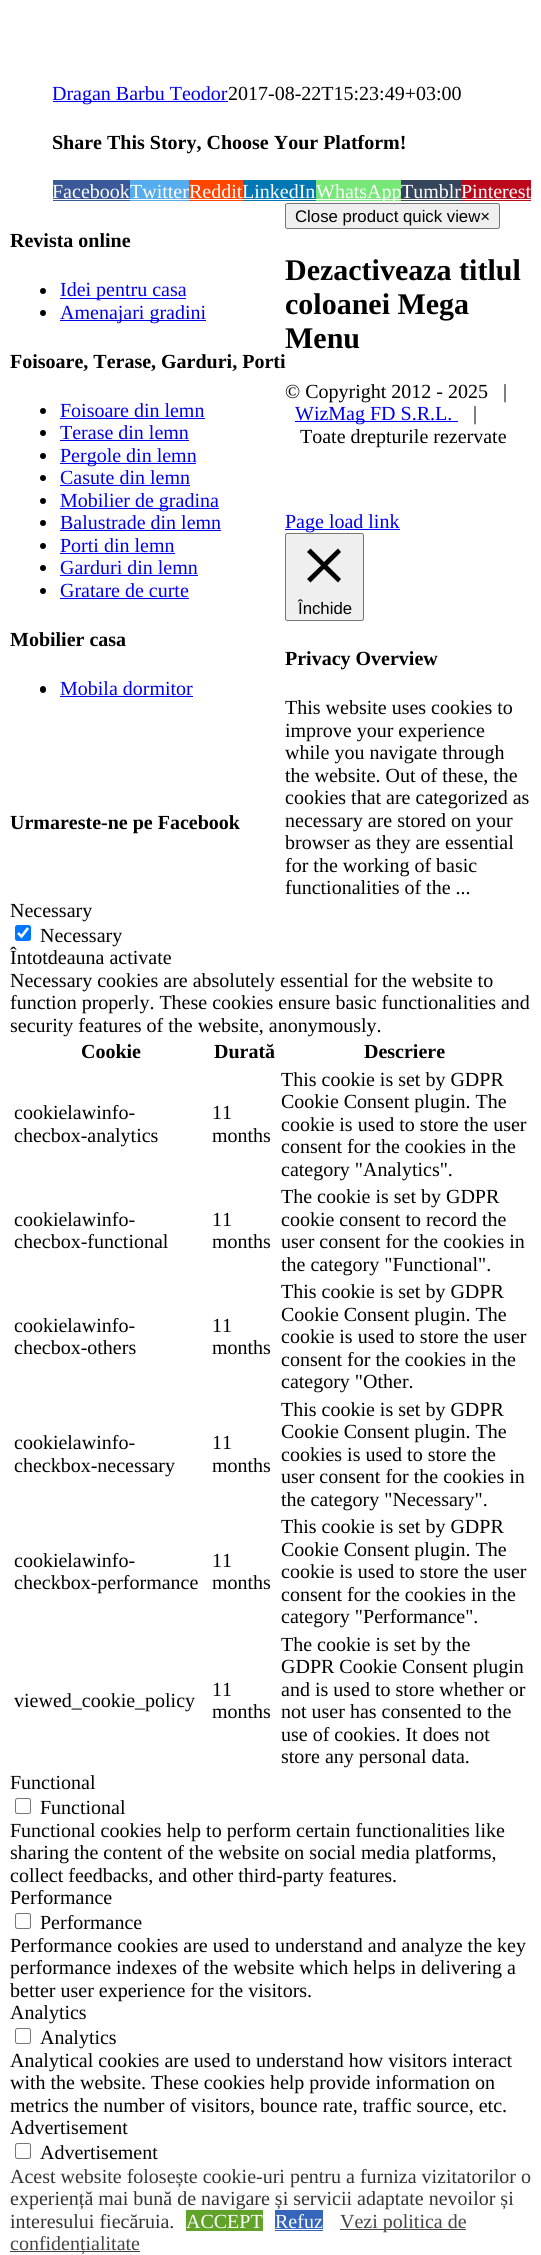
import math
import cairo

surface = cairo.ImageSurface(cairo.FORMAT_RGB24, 541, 2255)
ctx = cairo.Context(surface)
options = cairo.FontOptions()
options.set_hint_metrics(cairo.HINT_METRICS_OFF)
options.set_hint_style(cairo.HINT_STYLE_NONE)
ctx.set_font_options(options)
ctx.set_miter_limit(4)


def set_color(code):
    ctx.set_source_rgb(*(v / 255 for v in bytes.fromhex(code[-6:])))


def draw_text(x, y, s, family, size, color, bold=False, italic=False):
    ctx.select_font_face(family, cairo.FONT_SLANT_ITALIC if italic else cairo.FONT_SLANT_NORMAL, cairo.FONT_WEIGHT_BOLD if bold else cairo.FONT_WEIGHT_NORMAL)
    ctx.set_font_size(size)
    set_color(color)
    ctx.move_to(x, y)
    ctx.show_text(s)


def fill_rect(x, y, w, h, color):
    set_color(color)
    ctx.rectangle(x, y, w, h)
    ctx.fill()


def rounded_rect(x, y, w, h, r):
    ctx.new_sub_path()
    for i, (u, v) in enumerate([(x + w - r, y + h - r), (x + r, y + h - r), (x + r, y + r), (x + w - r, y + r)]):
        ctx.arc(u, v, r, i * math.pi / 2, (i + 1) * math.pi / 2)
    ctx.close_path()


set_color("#ffffff")
ctx.paint()
fill_rect(53, 101, 175, 1, "#0000ee")
draw_text(52, 100, "Dragan Barbu Teodor", "Liberation Serif", 20, "#0000ee")
draw_text(228, 100, "2017-08-22T15:23:49+03:00", "Liberation Serif", 20, "#000000")
draw_text(52, 149, "Share This Story, Choose Your Platform!", "Liberation Serif", 20, "#000000", bold=True)
fill_rect(53, 180, 77, 21, "#3b5998")
draw_text(52, 198, "Facebook", "Liberation Serif", 20, "#ffffff")
fill_rect(53, 199, 77, 1, "#ffffff")
fill_rect(130, 180, 59, 21, "#55acee")
draw_text(130, 198, "Twitter", "Liberation Serif", 20, "#ffffff")
fill_rect(130, 199, 59, 1, "#ffffff")
fill_rect(189, 180, 54, 21, "#ff4500")
draw_text(189, 198, "Reddit", "Liberation Serif", 20, "#ffffff")
fill_rect(189, 199, 54, 1, "#ffffff")
fill_rect(243, 180, 73, 21, "#0077b5")
draw_text(242, 198, "LinkedIn", "Liberation Serif", 20, "#ffffff")
fill_rect(243, 199, 73, 1, "#ffffff")
fill_rect(316, 180, 85, 21, "#77e878")
fill_rect(316, 199, 85, 1, "#ffffff")
draw_text(316, 198, "WhatsApp", "Liberation Serif", 20, "#ffffff")
fill_rect(401, 180, 60, 21, "#35465c")
draw_text(401, 198, "Tumblr", "Liberation Serif", 20, "#ffffff")
fill_rect(401, 199, 60, 1, "#ffffff")
fill_rect(461, 180, 70, 21, "#bd081c")
draw_text(461, 198, "Pinterest", "Liberation Serif", 20, "#ffffff")
fill_rect(461, 199, 70, 1, "#ffffff")
draw_text(10, 247, "Revista online", "Liberation Serif", 20, "#000000", bold=True)
ctx.new_path()
ctx.arc(43, 291, 3, 0, 2 * math.pi)
ctx.fill()
fill_rect(60, 298, 126, 1, "#0000ee")
draw_text(60, 296, "Idei pentru casa", "Liberation Serif", 20, "#0000ee")
set_color("#000000")
ctx.new_path()
ctx.arc(43, 313, 3, 0, 2 * math.pi)
ctx.fill()
fill_rect(60, 320, 146, 1, "#0000ee")
draw_text(60, 319, "Amenajari gradini", "Liberation Serif", 20, "#0000ee")
draw_text(10, 368, "Foisoare, Terase, Garduri, Porti", "Liberation Serif", 20, "#000000", bold=True)
ctx.new_path()
ctx.arc(43, 411, 3, 0, 2 * math.pi)
ctx.fill()
draw_text(60, 417, "Foisoare din lemn", "Liberation Serif", 20, "#0000ee")
fill_rect(60, 418, 145, 1, "#0000ee")
set_color("#000000")
ctx.new_path()
ctx.arc(43, 433, 3, 0, 2 * math.pi)
ctx.fill()
draw_text(60, 439, "Terase din lemn", "Liberation Serif", 20, "#0000ee")
fill_rect(60, 440, 129, 1, "#0000ee")
set_color("#000000")
ctx.new_path()
ctx.arc(43, 456, 3, 0, 2 * math.pi)
ctx.fill()
fill_rect(60, 463, 136, 1, "#0000ee")
draw_text(60, 462, "Pergole din lemn", "Liberation Serif", 20, "#0000ee")
set_color("#000000")
ctx.new_path()
ctx.arc(43, 478, 3, 0, 2 * math.pi)
ctx.fill()
draw_text(60, 484, "Casute din lemn", "Liberation Serif", 20, "#0000ee")
fill_rect(60, 485, 130, 1, "#0000ee")
set_color("#000000")
ctx.new_path()
ctx.arc(43, 501, 3, 0, 2 * math.pi)
ctx.fill()
fill_rect(60, 508, 159, 1, "#0000ee")
draw_text(60, 507, "Mobilier de gradina", "Liberation Serif", 20, "#0000ee")
set_color("#000000")
ctx.new_path()
ctx.arc(43, 523, 3, 0, 2 * math.pi)
ctx.fill()
draw_text(60, 529, "Balustrade din lemn", "Liberation Serif", 20, "#0000ee")
fill_rect(60, 530, 161, 1, "#0000ee")
set_color("#000000")
ctx.new_path()
ctx.arc(43, 546, 3, 0, 2 * math.pi)
ctx.fill()
draw_text(60, 552, "Porti din lemn", "Liberation Serif", 20, "#0000ee")
fill_rect(60, 553, 115, 1, "#0000ee")
set_color("#000000")
ctx.new_path()
ctx.arc(43, 568, 3, 0, 2 * math.pi)
ctx.fill()
draw_text(60, 574, "Garduri din lemn", "Liberation Serif", 20, "#0000ee")
fill_rect(60, 575, 138, 1, "#0000ee")
set_color("#000000")
ctx.new_path()
ctx.arc(43, 591, 3, 0, 2 * math.pi)
ctx.fill()
draw_text(60, 597, "Gratare de curte", "Liberation Serif", 20, "#0000ee")
fill_rect(60, 598, 129, 1, "#0000ee")
draw_text(10, 646, "Mobilier casa", "Liberation Serif", 20, "#000000", bold=True)
rounded_rect(40, 686, 6, 7, 3)
ctx.fill()
draw_text(60, 695, "Mobila dormitor", "Liberation Serif", 20, "#0000ee")
fill_rect(60, 696, 133, 1, "#0000ee")
draw_text(10, 829, "Urmareste-ne pe Facebook", "Liberation Serif", 20, "#000000", bold=True)
set_color("#efefef")
rounded_rect(285.5, 203.5, 214, 25, 2)
ctx.fill_preserve()
set_color("#767676")
ctx.set_line_width(1)
ctx.stroke()
draw_text(295, 222, "Close product quick view×", "Liberation Sans", 16.75, "#000000")
draw_text(285, 280, "Dezactiveaza titlul", "Liberation Serif", 30, "#000000", bold=True)
draw_text(285, 314, "coloanei Mega", "Liberation Serif", 30, "#000000", bold=True)
draw_text(285, 348, "Menu", "Liberation Serif", 30, "#000000", bold=True)
draw_text(285, 398, "© Copyright 2012 - 2025   |", "Liberation Serif", 20, "#000000")
fill_rect(295, 421, 163, 1, "#0000ee")
draw_text(295, 420, "WizMag FD S.R.L.", "Liberation Serif", 20, "#0000ee")
draw_text(473, 420, "|", "Liberation Serif", 20, "#000000")
draw_text(300, 443, "Toate drepturile rezervate", "Liberation Serif", 20, "#000000")
fill_rect(285, 529, 115, 1, "#0000ee")
draw_text(285, 528, "Page load link", "Liberation Serif", 20, "#0000ee")
set_color("#efefef")
rounded_rect(285.5, 533.5, 78, 87, 2)
ctx.fill_preserve()
set_color("#767676")
ctx.stroke()
set_color("#000000")
ctx.new_path()
ctx.move_to(341, 552)
ctx.line_to(338, 548.5)
ctx.line_to(324, 562)
ctx.line_to(310.5, 548.5)
ctx.line_to(307, 552)
ctx.line_to(321, 565.5)
ctx.line_to(307, 579)
ctx.line_to(310.5, 582.5)
ctx.line_to(324, 569)
ctx.line_to(338, 582.5)
ctx.line_to(341, 579)
ctx.line_to(327.5, 565.5)
ctx.close_path()
ctx.fill()
draw_text(298, 614, "Închide", "Liberation Sans", 16.75, "#000000")
draw_text(285, 665, "Privacy Overview", "Liberation Serif", 20, "#000000", bold=True)
draw_text(285, 714, "This website uses cookies to", "Liberation Serif", 20, "#000000")
draw_text(285, 737, "improve your experience", "Liberation Serif", 20, "#000000")
draw_text(285, 759, "while you navigate through", "Liberation Serif", 20, "#000000")
draw_text(285, 782, "the website. Out of these, the", "Liberation Serif", 20, "#000000")
draw_text(285, 804, "cookies that are categorized as", "Liberation Serif", 20, "#000000")
draw_text(285, 827, "necessary are stored on your", "Liberation Serif", 20, "#000000")
draw_text(285, 849, "browser as they are essential", "Liberation Serif", 20, "#000000")
draw_text(285, 872, "for the working of basic", "Liberation Serif", 20, "#000000")
draw_text(285, 894, "functionalities of the ...", "Liberation Serif", 20, "#000000")
draw_text(10, 917, "Necessary", "Liberation Serif", 20, "#000000")
set_color("#0075ff")
rounded_rect(15, 925, 16, 16, 2.5)
ctx.fill()
ctx.new_path()
ctx.move_to(18, 933)
ctx.line_to(21.5, 936.5)
ctx.line_to(28, 928)
set_color("#ffffff")
ctx.set_line_width(2.6)
ctx.stroke()
draw_text(40, 942, "Necessary", "Liberation Serif", 20, "#000000")
draw_text(10, 964, "Întotdeauna activate", "Liberation Serif", 20, "#000000")
draw_text(10, 987, "Necessary cookies are absolutely essential for the website to", "Liberation Serif", 20, "#000000")
draw_text(10, 1009, "function properly. These cookies ensure basic functionalities and", "Liberation Serif", 20, "#000000")
draw_text(10, 1032, "security features of the website, anonymously.", "Liberation Serif", 20, "#000000")
draw_text(81, 1058, "Cookie", "Liberation Serif", 20, "#000000", bold=True)
draw_text(214, 1058, "Durată", "Liberation Serif", 20, "#000000", bold=True)
draw_text(364, 1058, "Descriere", "Liberation Serif", 20, "#000000", bold=True)
draw_text(14, 1119, "cookielawinfo-", "Liberation Serif", 20, "#000000")
draw_text(14, 1142, "checbox-analytics", "Liberation Serif", 20, "#000000")
draw_text(212, 1119, "11", "Liberation Serif", 20, "#000000")
draw_text(212, 1142, "months", "Liberation Serif", 20, "#000000")
draw_text(281, 1086, "This cookie is set by GDPR", "Liberation Serif", 20, "#000000")
draw_text(281, 1108, "Cookie Consent plugin. The", "Liberation Serif", 20, "#000000")
draw_text(281, 1131, "cookie is used to store the user", "Liberation Serif", 20, "#000000")
draw_text(281, 1153, "consent for the cookies in the", "Liberation Serif", 20, "#000000")
draw_text(281, 1176, "category \"Analytics\".", "Liberation Serif", 20, "#000000")
draw_text(14, 1226, "cookielawinfo-", "Liberation Serif", 20, "#000000")
draw_text(14, 1248, "checbox-functional", "Liberation Serif", 20, "#000000")
draw_text(212, 1226, "11", "Liberation Serif", 20, "#000000")
draw_text(212, 1248, "months", "Liberation Serif", 20, "#000000")
draw_text(281, 1203, "The cookie is set by GDPR", "Liberation Serif", 20, "#000000")
draw_text(281, 1226, "cookie consent to record the", "Liberation Serif", 20, "#000000")
draw_text(281, 1248, "user consent for the cookies in", "Liberation Serif", 20, "#000000")
draw_text(281, 1271, "the category \"Functional\".", "Liberation Serif", 20, "#000000")
draw_text(14, 1332, "cookielawinfo-", "Liberation Serif", 20, "#000000")
draw_text(14, 1354, "checbox-others", "Liberation Serif", 20, "#000000")
draw_text(212, 1332, "11", "Liberation Serif", 20, "#000000")
draw_text(212, 1354, "months", "Liberation Serif", 20, "#000000")
draw_text(281, 1298, "This cookie is set by GDPR", "Liberation Serif", 20, "#000000")
draw_text(281, 1321, "Cookie Consent plugin. The", "Liberation Serif", 20, "#000000")
draw_text(281, 1343, "cookie is used to store the user", "Liberation Serif", 20, "#000000")
draw_text(281, 1366, "consent for the cookies in the", "Liberation Serif", 20, "#000000")
draw_text(281, 1388, "category \"Other.", "Liberation Serif", 20, "#000000")
draw_text(14, 1449, "cookielawinfo-", "Liberation Serif", 20, "#000000")
draw_text(14, 1472, "checkbox-necessary", "Liberation Serif", 20, "#000000")
draw_text(212, 1449, "11", "Liberation Serif", 20, "#000000")
draw_text(212, 1472, "months", "Liberation Serif", 20, "#000000")
draw_text(281, 1416, "This cookie is set by GDPR", "Liberation Serif", 20, "#000000")
draw_text(281, 1438, "Cookie Consent plugin. The", "Liberation Serif", 20, "#000000")
draw_text(281, 1461, "cookies is used to store the", "Liberation Serif", 20, "#000000")
draw_text(281, 1483, "user consent for the cookies in", "Liberation Serif", 20, "#000000")
draw_text(281, 1506, "the category \"Necessary\".", "Liberation Serif", 20, "#000000")
draw_text(14, 1567, "cookielawinfo-", "Liberation Serif", 20, "#000000")
draw_text(14, 1589, "checkbox-performance", "Liberation Serif", 20, "#000000")
draw_text(212, 1567, "11", "Liberation Serif", 20, "#000000")
draw_text(212, 1589, "months", "Liberation Serif", 20, "#000000")
draw_text(281, 1533, "This cookie is set by GDPR", "Liberation Serif", 20, "#000000")
draw_text(281, 1556, "Cookie Consent plugin. The", "Liberation Serif", 20, "#000000")
draw_text(281, 1578, "cookie is used to store the user", "Liberation Serif", 20, "#000000")
draw_text(281, 1601, "consent for the cookies in the", "Liberation Serif", 20, "#000000")
draw_text(281, 1623, "category \"Performance\".", "Liberation Serif", 20, "#000000")
draw_text(14, 1707, "viewed_cookie_policy", "Liberation Serif", 20, "#000000")
draw_text(212, 1696, "11", "Liberation Serif", 20, "#000000")
draw_text(212, 1718, "months", "Liberation Serif", 20, "#000000")
draw_text(281, 1651, "The cookie is set by the", "Liberation Serif", 20, "#000000")
draw_text(281, 1673, "GDPR Cookie Consent plugin", "Liberation Serif", 20, "#000000")
draw_text(281, 1696, "and is used to store whether or", "Liberation Serif", 20, "#000000")
draw_text(281, 1718, "not user has consented to the", "Liberation Serif", 20, "#000000")
draw_text(281, 1741, "use of cookies. It does not", "Liberation Serif", 20, "#000000")
draw_text(281, 1763, "store any personal data.", "Liberation Serif", 20, "#000000")
draw_text(10, 1789, "Functional", "Liberation Serif", 20, "#000000")
rounded_rect(15.5, 1798.5, 15, 15, 2)
set_color("#767676")
ctx.set_line_width(1)
ctx.stroke()
draw_text(40, 1814, "Functional", "Liberation Serif", 20, "#000000")
draw_text(10, 1837, "Functional cookies help to perform certain functionalities like", "Liberation Serif", 20, "#000000")
draw_text(10, 1859, "sharing the content of the website on social media platforms,", "Liberation Serif", 20, "#000000")
draw_text(10, 1882, "collect feedbacks, and other third-party features.", "Liberation Serif", 20, "#000000")
draw_text(10, 1904, "Performance", "Liberation Serif", 20, "#000000")
rounded_rect(15.5, 1913.5, 15, 15, 2)
set_color("#767676")
ctx.stroke()
draw_text(40, 1929, "Performance", "Liberation Serif", 20, "#000000")
draw_text(10, 1952, "Performance cookies are used to understand and analyze the key", "Liberation Serif", 20, "#000000")
draw_text(10, 1974, "performance indexes of the website which helps in delivering a", "Liberation Serif", 20, "#000000")
draw_text(10, 1997, "better user experience for the visitors.", "Liberation Serif", 20, "#000000")
draw_text(10, 2019, "Analytics", "Liberation Serif", 20, "#000000")
rounded_rect(15.5, 2028.5, 15, 15, 2)
set_color("#767676")
ctx.stroke()
draw_text(40, 2044, "Analytics", "Liberation Serif", 20, "#000000")
draw_text(10, 2067, "Analytical cookies are used to understand how visitors interact", "Liberation Serif", 20, "#000000")
draw_text(10, 2089, "with the website. These cookies help provide information on", "Liberation Serif", 20, "#000000")
draw_text(10, 2112, "metrics the number of visitors, bounce rate, traffic source, etc.", "Liberation Serif", 20, "#000000")
draw_text(10, 2134, "Advertisement", "Liberation Serif", 20, "#000000")
rounded_rect(15.5, 2143.5, 15, 15, 2)
set_color("#767676")
ctx.stroke()
draw_text(40, 2159, "Advertisement", "Liberation Serif", 20, "#000000")
draw_text(10, 2183, "Acest website folosește cookie-uri pentru a furniza vizitatorilor o", "Liberation Serif", 20, "#333333")
draw_text(10, 2205, "experiență mai bună de navigare și servicii adaptate nevoilor și", "Liberation Serif", 20, "#333333")
draw_text(10, 2228, "interesului fiecăruia.", "Liberation Serif", 20, "#333333")
fill_rect(186, 2210, 77, 21, "#61a229")
draw_text(186, 2228, "ACCEPT", "Liberation Serif", 20, "#ffffff")
fill_rect(275, 2210, 48, 21, "#3566bb")
draw_text(275, 2228, "Refuz", "Liberation Serif", 20, "#ffffff")
fill_rect(275, 2229, 48, 1, "#ffffff")
fill_rect(340, 2229, 126, 1, "#444444")
draw_text(340, 2228, "Vezi politica de", "Liberation Serif", 20, "#444444")
fill_rect(10, 2251, 130, 1, "#444444")
draw_text(10, 2250, "confidențialitate", "Liberation Serif", 20, "#444444")
surface.write_to_png("output.png")
